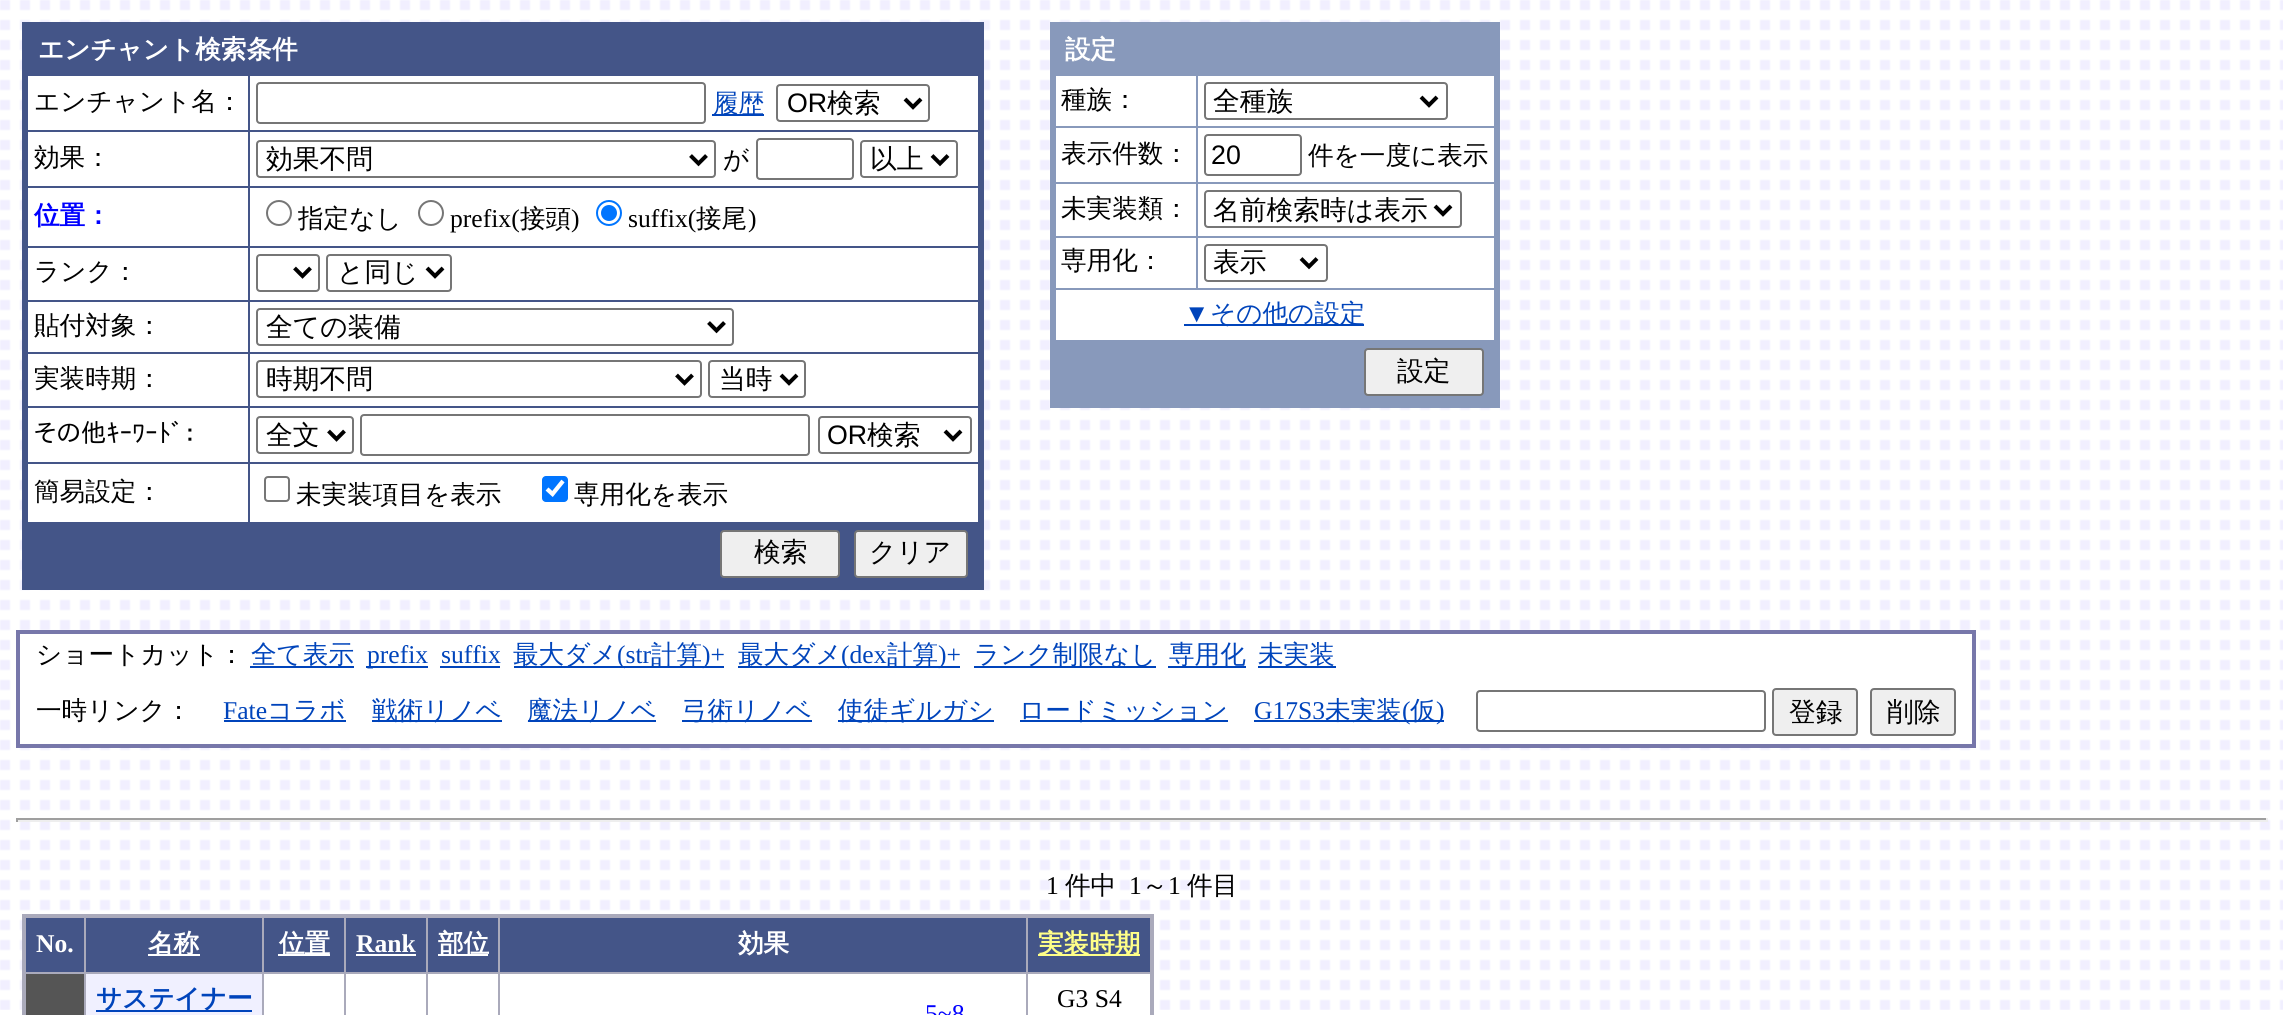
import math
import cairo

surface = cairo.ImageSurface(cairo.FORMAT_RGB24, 2283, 1015)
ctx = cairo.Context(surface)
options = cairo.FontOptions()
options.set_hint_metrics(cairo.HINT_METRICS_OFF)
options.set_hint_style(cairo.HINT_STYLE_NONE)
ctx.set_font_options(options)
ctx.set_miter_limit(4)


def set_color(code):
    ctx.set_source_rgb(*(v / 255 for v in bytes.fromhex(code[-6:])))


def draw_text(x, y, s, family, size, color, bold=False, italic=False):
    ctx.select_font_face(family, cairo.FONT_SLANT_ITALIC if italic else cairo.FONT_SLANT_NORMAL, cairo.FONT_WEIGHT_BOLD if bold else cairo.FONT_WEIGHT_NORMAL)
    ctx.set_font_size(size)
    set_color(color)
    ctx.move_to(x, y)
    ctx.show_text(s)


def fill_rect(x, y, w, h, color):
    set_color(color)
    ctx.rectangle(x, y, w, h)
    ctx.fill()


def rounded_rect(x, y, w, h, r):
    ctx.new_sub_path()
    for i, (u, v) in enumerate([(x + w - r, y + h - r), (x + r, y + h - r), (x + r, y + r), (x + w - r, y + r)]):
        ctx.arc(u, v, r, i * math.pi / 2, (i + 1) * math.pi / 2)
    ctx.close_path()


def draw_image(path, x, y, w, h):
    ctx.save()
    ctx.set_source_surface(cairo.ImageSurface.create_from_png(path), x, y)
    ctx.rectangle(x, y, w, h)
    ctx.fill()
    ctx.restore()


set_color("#ffffff")
ctx.paint()
draw_image("assets/img1.png", 0, 0, 2283, 1010)
fill_rect(22, 22, 962, 568, "#445588")
draw_text(38, 58, "エンチャント検索条件", "WenQuanYi Zen Hei", 25.6, "#ffffff", bold=True)
fill_rect(28, 76, 220, 54, "#ffffff")
draw_text(34, 110, "エンチャント名：", "WenQuanYi Zen Hei Medium", 25.6, "#000000")
fill_rect(250, 76, 728, 54, "#ffffff")
rounded_rect(257, 83, 448, 40, 3)
set_color("#767676")
ctx.stroke()
fill_rect(712, 114, 52, 2, "#0044bb")
draw_text(713, 112, "履歴", "WenQuanYi Zen Hei Medium", 25.6, "#0044bb")
rounded_rect(777, 85, 152, 36, 3)
set_color("#767676")
ctx.stroke()
ctx.new_path()
ctx.move_to(905, 99)
ctx.line_to(913, 107)
ctx.line_to(921, 99)
set_color("#000000")
ctx.set_line_width(4)
ctx.stroke()
draw_text(787, 112, "OR", "Liberation Sans", 26.75, "#000000")
draw_text(827, 112, "検索", "WenQuanYi Zen Hei Medium", 26.75, "#000000")
fill_rect(28, 132, 220, 54, "#ffffff")
draw_text(34, 166, "効果：", "WenQuanYi Zen Hei Medium", 25.6, "#000000")
fill_rect(250, 132, 728, 54, "#ffffff")
rounded_rect(257, 141, 458, 36, 3)
set_color("#767676")
ctx.set_line_width(2)
ctx.stroke()
ctx.new_path()
ctx.move_to(690.5, 155.5)
ctx.line_to(698.5, 163.5)
ctx.line_to(706.5, 155.5)
set_color("#000000")
ctx.set_line_width(4)
ctx.stroke()
draw_text(266, 168, "効果不問", "WenQuanYi Zen Hei Medium", 26.75, "#000000")
draw_text(723, 168, "が", "WenQuanYi Zen Hei Medium", 25.6, "#000000")
rounded_rect(757, 139, 96, 40, 3)
set_color("#767676")
ctx.set_line_width(2)
ctx.stroke()
rounded_rect(861, 141, 96, 36, 3)
ctx.stroke()
ctx.new_path()
ctx.move_to(932, 155.5)
ctx.line_to(940, 163.5)
ctx.line_to(948, 155.5)
set_color("#000000")
ctx.set_line_width(4)
ctx.stroke()
draw_text(870, 168, "以上", "WenQuanYi Zen Hei Medium", 26.75, "#000000")
fill_rect(28, 188, 220, 58, "#ffffff")
draw_text(34, 224, "位置：", "WenQuanYi Zen Hei", 25.6, "#0000ff", bold=True)
fill_rect(250, 188, 728, 58, "#ffffff")
ctx.new_path()
ctx.arc(279, 213, 12, 0, 2 * math.pi)
set_color("#767676")
ctx.set_line_width(2)
ctx.stroke()
draw_text(298, 227, "指定なし", "WenQuanYi Zen Hei Medium", 25.6, "#000000")
ctx.new_path()
ctx.arc(431, 213, 12, 0, 2 * math.pi)
set_color("#767676")
ctx.stroke()
draw_text(450, 227, "prefix(", "Liberation Serif", 25.6, "#000000")
draw_text(520, 227, "接頭", "WenQuanYi Zen Hei Medium", 25.6, "#000000")
draw_text(571, 227, ")", "Liberation Serif", 25.6, "#000000")
ctx.new_path()
ctx.arc(609, 213, 12, 0, 2 * math.pi)
set_color("#0075ff")
ctx.stroke()
ctx.arc(609, 213, 8, 0, 2 * math.pi)
ctx.fill()
draw_text(628, 227, "suffix(", "Liberation Serif", 25.6, "#000000")
draw_text(696, 227, "接尾", "WenQuanYi Zen Hei Medium", 25.6, "#000000")
draw_text(748, 227, ")", "Liberation Serif", 25.6, "#000000")
fill_rect(28, 248, 220, 52, "#ffffff")
draw_text(34, 280, "ランク：", "WenQuanYi Zen Hei Medium", 25.6, "#000000")
fill_rect(250, 248, 728, 52, "#ffffff")
rounded_rect(257, 255, 62, 36, 3)
set_color("#767676")
ctx.stroke()
ctx.new_path()
ctx.move_to(294.5, 268)
ctx.line_to(302.5, 276)
ctx.line_to(310.5, 268)
set_color("#000000")
ctx.set_line_width(4)
ctx.stroke()
rounded_rect(327, 255, 124, 36, 3)
set_color("#767676")
ctx.set_line_width(2)
ctx.stroke()
ctx.new_path()
ctx.move_to(427, 268)
ctx.line_to(435, 276)
ctx.line_to(443, 268)
set_color("#000000")
ctx.set_line_width(4)
ctx.stroke()
draw_text(337, 281, "と同じ", "WenQuanYi Zen Hei Medium", 26.75, "#000000")
fill_rect(28, 302, 220, 50, "#ffffff")
draw_text(34, 334, "貼付対象：", "WenQuanYi Zen Hei Medium", 25.6, "#000000")
fill_rect(250, 302, 728, 50, "#ffffff")
rounded_rect(257, 309, 476, 36, 3)
set_color("#767676")
ctx.set_line_width(2)
ctx.stroke()
ctx.new_path()
ctx.move_to(708.5, 322.5)
ctx.line_to(716.5, 330.5)
ctx.line_to(724.5, 322.5)
set_color("#000000")
ctx.set_line_width(4)
ctx.stroke()
draw_text(266, 336, "全ての装備", "WenQuanYi Zen Hei Medium", 26.75, "#000000")
fill_rect(28, 354, 220, 52, "#ffffff")
draw_text(34, 387, "実装時期：", "WenQuanYi Zen Hei Medium", 25.6, "#000000")
fill_rect(250, 354, 728, 52, "#ffffff")
rounded_rect(257, 361, 444, 36, 3)
set_color("#767676")
ctx.set_line_width(2)
ctx.stroke()
ctx.new_path()
ctx.move_to(676.5, 375)
ctx.line_to(684.5, 383)
ctx.line_to(692.5, 375)
set_color("#000000")
ctx.set_line_width(4)
ctx.stroke()
draw_text(266, 388, "時期不問", "WenQuanYi Zen Hei Medium", 26.75, "#000000")
rounded_rect(709, 361, 96, 36, 3)
set_color("#767676")
ctx.set_line_width(2)
ctx.stroke()
ctx.new_path()
ctx.move_to(781, 375)
ctx.line_to(789, 383)
ctx.line_to(797, 375)
set_color("#000000")
ctx.set_line_width(4)
ctx.stroke()
draw_text(719, 388, "当時", "WenQuanYi Zen Hei Medium", 26.75, "#000000")
fill_rect(28, 408, 220, 54, "#ffffff")
draw_text(34, 442, "その他ｷｰﾜｰﾄﾞ：", "IPAPGothic", 25.6, "#000000")
fill_rect(250, 408, 728, 54, "#ffffff")
rounded_rect(257, 417, 96, 36, 3)
set_color("#767676")
ctx.set_line_width(2)
ctx.stroke()
ctx.new_path()
ctx.move_to(328.5, 431)
ctx.line_to(336.5, 439)
ctx.line_to(344.5, 431)
set_color("#000000")
ctx.set_line_width(4)
ctx.stroke()
draw_text(266, 444, "全文", "WenQuanYi Zen Hei Medium", 26.75, "#000000")
rounded_rect(361, 415, 448, 40, 3)
set_color("#767676")
ctx.set_line_width(2)
ctx.stroke()
rounded_rect(819, 417, 152, 36, 3)
ctx.stroke()
ctx.new_path()
ctx.move_to(945, 431)
ctx.line_to(953, 439)
ctx.line_to(961, 431)
set_color("#000000")
ctx.set_line_width(4)
ctx.stroke()
draw_text(827, 444, "OR", "Liberation Sans", 26.75, "#000000")
draw_text(867, 444, "検索", "WenQuanYi Zen Hei Medium", 26.75, "#000000")
fill_rect(28, 464, 220, 58, "#ffffff")
draw_text(34, 500, "簡易設定：", "WenQuanYi Zen Hei Medium", 25.6, "#000000")
fill_rect(250, 464, 728, 58, "#ffffff")
rounded_rect(265, 477, 24, 24, 3)
set_color("#767676")
ctx.set_line_width(2)
ctx.stroke()
draw_text(296, 503, "未実装項目を表示", "WenQuanYi Zen Hei Medium", 25.6, "#000000")
set_color("#0075ff")
rounded_rect(542, 476, 26, 26, 4)
ctx.fill()
ctx.new_path()
ctx.move_to(547, 489)
ctx.line_to(552.5, 494)
ctx.line_to(563, 481)
set_color("#ffffff")
ctx.set_line_width(4.2)
ctx.stroke()
draw_text(574, 503, "専用化を表示", "WenQuanYi Zen Hei Medium", 25.6, "#000000")
set_color("#efefef")
rounded_rect(721, 531, 118, 46, 3)
ctx.fill_preserve()
set_color("#767676")
ctx.set_line_width(2)
ctx.stroke()
draw_text(754, 561, "検索", "WenQuanYi Zen Hei Medium", 26.75, "#000000")
set_color("#efefef")
rounded_rect(855, 531, 112, 46, 3)
ctx.fill_preserve()
set_color("#767676")
ctx.stroke()
draw_text(869, 561, "クリア", "WenQuanYi Zen Hei Medium", 26.75, "#000000")
fill_rect(1050, 22, 450, 386, "#8899bb")
draw_text(1065, 58, "設定", "WenQuanYi Zen Hei", 25.6, "#ffffff", bold=True)
fill_rect(1056, 76, 140, 50, "#ffffff")
draw_text(1061, 108, "種族：", "WenQuanYi Zen Hei Medium", 25.6, "#000000")
fill_rect(1198, 76, 296, 50, "#ffffff")
rounded_rect(1205, 83, 242, 36, 3)
set_color("#767676")
ctx.stroke()
ctx.new_path()
ctx.move_to(1421, 97)
ctx.line_to(1429, 105)
ctx.line_to(1437, 97)
set_color("#000000")
ctx.set_line_width(4)
ctx.stroke()
draw_text(1213, 110, "全種族", "WenQuanYi Zen Hei Medium", 26.75, "#000000")
fill_rect(1056, 128, 140, 54, "#ffffff")
draw_text(1061, 162, "表示件数：", "WenQuanYi Zen Hei Medium", 25.6, "#000000")
fill_rect(1198, 128, 296, 54, "#ffffff")
rounded_rect(1205, 135, 96, 40, 3)
set_color("#767676")
ctx.set_line_width(2)
ctx.stroke()
draw_text(1211, 164, "20", "Liberation Sans", 26.75, "#000000")
draw_text(1308, 164, "件を一度に表示", "WenQuanYi Zen Hei Medium", 25.6, "#000000")
fill_rect(1056, 184, 140, 52, "#ffffff")
draw_text(1061, 217, "未実装類：", "WenQuanYi Zen Hei Medium", 25.6, "#000000")
fill_rect(1198, 184, 296, 52, "#ffffff")
rounded_rect(1205, 191, 256, 36, 3)
set_color("#767676")
ctx.stroke()
ctx.new_path()
ctx.move_to(1435, 206)
ctx.line_to(1443, 214)
ctx.line_to(1451, 206)
set_color("#000000")
ctx.set_line_width(4)
ctx.stroke()
draw_text(1213, 219, "名前検索時は表示", "WenQuanYi Zen Hei Medium", 26.75, "#000000")
fill_rect(1056, 238, 140, 50, "#ffffff")
draw_text(1061, 269, "専用化：", "WenQuanYi Zen Hei Medium", 25.6, "#000000")
fill_rect(1198, 238, 296, 50, "#ffffff")
rounded_rect(1205, 245, 122, 36, 3)
set_color("#767676")
ctx.set_line_width(2)
ctx.stroke()
ctx.new_path()
ctx.move_to(1301, 258.5)
ctx.line_to(1309, 266.5)
ctx.line_to(1317, 258.5)
set_color("#000000")
ctx.set_line_width(4)
ctx.stroke()
draw_text(1213, 271, "表示", "WenQuanYi Zen Hei Medium", 26.75, "#000000")
fill_rect(1056, 290, 438, 50, "#ffffff")
draw_text(1184, 322, "▼", "Liberation Serif", 25.6, "#0044bb")
fill_rect(1184, 324, 180, 2, "#0044bb")
draw_text(1210, 322, "その他の設定", "WenQuanYi Zen Hei Medium", 25.6, "#0044bb")
set_color("#efefef")
rounded_rect(1365, 349, 118, 46, 3)
ctx.fill_preserve()
set_color("#767676")
ctx.set_line_width(2)
ctx.stroke()
draw_text(1397, 380, "設定", "WenQuanYi Zen Hei Medium", 26.75, "#000000")
fill_rect(16, 630, 1960, 4, "#7777aa")
fill_rect(1972, 630, 4, 118, "#7777aa")
fill_rect(16, 744, 1960, 4, "#7777aa")
fill_rect(16, 630, 4, 118, "#7777aa")
fill_rect(20, 639, 1951, 41, "#ffffff")
draw_text(36, 663, "ショートカット：", "WenQuanYi Zen Hei Medium", 25.6, "#000000")
fill_rect(250, 666, 104, 2, "#0044bb")
draw_text(251, 663, "全て表示", "WenQuanYi Zen Hei Medium", 25.6, "#0044bb")
fill_rect(366, 666, 62, 2, "#0044bb")
draw_text(367, 663, "prefix", "Liberation Serif", 25.6, "#0044bb")
draw_text(441, 663, "suffix", "Liberation Serif", 25.6, "#0044bb")
fill_rect(440, 666, 60, 2, "#0044bb")
fill_rect(514, 666, 210, 2, "#0044bb")
draw_text(513, 663, "最大ダメ", "WenQuanYi Zen Hei Medium", 25.6, "#0044bb")
draw_text(617, 663, "(str", "Liberation Serif", 25.6, "#0044bb")
draw_text(651, 663, "計算", "WenQuanYi Zen Hei Medium", 25.6, "#0044bb")
draw_text(702, 663, ")+", "Liberation Serif", 25.6, "#0044bb")
fill_rect(738, 666, 222, 2, "#0044bb")
draw_text(738, 663, "最大ダメ", "WenQuanYi Zen Hei Medium", 25.6, "#0044bb")
draw_text(841, 663, "(dex", "Liberation Serif", 25.6, "#0044bb")
draw_text(887, 663, "計算", "WenQuanYi Zen Hei Medium", 25.6, "#0044bb")
draw_text(938, 663, ")+", "Liberation Serif", 25.6, "#0044bb")
fill_rect(974, 666, 182, 2, "#0044bb")
draw_text(974, 663, "ランク制限なし", "WenQuanYi Zen Hei Medium", 25.6, "#0044bb")
fill_rect(1168, 666, 78, 2, "#0044bb")
draw_text(1169, 663, "専用化", "WenQuanYi Zen Hei Medium", 25.6, "#0044bb")
fill_rect(1258, 666, 78, 2, "#0044bb")
draw_text(1258, 663, "未実装", "WenQuanYi Zen Hei Medium", 25.6, "#0044bb")
fill_rect(20, 680, 1951, 64, "#ffffff")
draw_text(36, 719, "一時リンク：", "WenQuanYi Zen Hei Medium", 25.6, "#000000")
draw_text(223, 719, "Fate", "Liberation Serif", 25.6, "#0044bb")
fill_rect(224, 720, 122, 2, "#0044bb")
draw_text(267, 719, "コラボ", "WenQuanYi Zen Hei Medium", 25.6, "#0044bb")
fill_rect(372, 720, 130, 2, "#0044bb")
draw_text(372, 719, "戦術リノベ", "WenQuanYi Zen Hei Medium", 25.6, "#0044bb")
fill_rect(528, 720, 128, 2, "#0044bb")
draw_text(527, 719, "魔法リノベ", "WenQuanYi Zen Hei Medium", 25.6, "#0044bb")
fill_rect(682, 720, 130, 2, "#0044bb")
draw_text(682, 719, "弓術リノベ", "WenQuanYi Zen Hei Medium", 25.6, "#0044bb")
fill_rect(838, 720, 156, 2, "#0044bb")
draw_text(838, 719, "使徒ギルガシ", "WenQuanYi Zen Hei Medium", 25.6, "#0044bb")
fill_rect(1020, 720, 208, 2, "#0044bb")
draw_text(1019, 719, "ロードミッション", "WenQuanYi Zen Hei Medium", 25.6, "#0044bb")
draw_text(1254, 719, "G17S3", "Liberation Serif", 25.6, "#0044bb")
fill_rect(1254, 720, 190, 2, "#0044bb")
draw_text(1325, 719, "未実装", "WenQuanYi Zen Hei Medium", 25.6, "#0044bb")
draw_text(1402, 719, "(", "Liberation Serif", 25.6, "#0044bb")
draw_text(1410, 719, "仮", "WenQuanYi Zen Hei Medium", 25.6, "#0044bb")
draw_text(1436, 719, ")", "Liberation Serif", 25.6, "#0044bb")
rounded_rect(1477, 691, 288, 40, 3)
set_color("#767676")
ctx.stroke()
set_color("#efefef")
rounded_rect(1773, 689, 84, 46, 3)
ctx.fill_preserve()
set_color("#767676")
ctx.stroke()
draw_text(1789, 721, "登録", "WenQuanYi Zen Hei Medium", 26.75, "#000000")
set_color("#efefef")
rounded_rect(1871, 689, 84, 46, 3)
ctx.fill_preserve()
set_color("#767676")
ctx.stroke()
draw_text(1887, 721, "削除", "WenQuanYi Zen Hei Medium", 26.75, "#000000")
fill_rect(16, 818, 2252, 2, "#9f9f9f")
fill_rect(2266, 818, 2, 4, "#eeeeee")
fill_rect(16, 820, 2252, 2, "#eeeeee")
fill_rect(16, 818, 2, 4, "#9f9f9f")
draw_text(1046, 894, "1", "Liberation Serif", 25.6, "#000000")
draw_text(1065, 894, "件中", "WenQuanYi Zen Hei Medium", 25.6, "#000000")
draw_text(1129, 894, "1", "Liberation Serif", 25.6, "#000000")
draw_text(1142, 894, "～", "WenQuanYi Zen Hei Medium", 25.6, "#000000")
draw_text(1168, 894, "1", "Liberation Serif", 25.6, "#000000")
draw_text(1187, 894, "件目", "WenQuanYi Zen Hei Medium", 25.6, "#000000")
fill_rect(264, 979, 886, 31, "#ffffff")
fill_rect(1026, 972, 128, 2, "#aaaabb")
fill_rect(1026, 972, 2, 43, "#aaaabb")
fill_rect(498, 972, 530, 2, "#aaaabb")
fill_rect(498, 972, 2, 43, "#aaaabb")
fill_rect(426, 972, 74, 2, "#aaaabb")
fill_rect(426, 972, 2, 43, "#aaaabb")
fill_rect(344, 972, 84, 2, "#aaaabb")
fill_rect(344, 972, 2, 43, "#aaaabb")
fill_rect(262, 972, 84, 2, "#aaaabb")
fill_rect(262, 972, 2, 43, "#aaaabb")
fill_rect(84, 972, 180, 2, "#aaaabb")
fill_rect(84, 972, 2, 43, "#aaaabb")
fill_rect(24, 972, 62, 2, "#aaaabb")
fill_rect(84, 916, 2, 58, "#aaaabb")
fill_rect(262, 916, 2, 58, "#aaaabb")
fill_rect(344, 916, 2, 58, "#aaaabb")
fill_rect(426, 916, 2, 58, "#aaaabb")
fill_rect(498, 916, 2, 58, "#aaaabb")
fill_rect(1026, 916, 2, 58, "#aaaabb")
fill_rect(22, 914, 1132, 4, "#aaaabb")
fill_rect(1150, 914, 4, 101, "#aaaabb")
fill_rect(22, 914, 4, 101, "#aaaabb")
fill_rect(26, 918, 58, 54, "#445588")
draw_text(36, 952, "No.", "Liberation Serif", 25.6, "#ffffff", bold=True)
fill_rect(86, 918, 176, 54, "#445588")
fill_rect(148, 954, 52, 2, "#ffffff")
draw_text(148, 952, "名称", "WenQuanYi Zen Hei", 25.6, "#ffffff", bold=True)
fill_rect(264, 918, 80, 54, "#445588")
fill_rect(278, 954, 52, 2, "#ffffff")
draw_text(279, 952, "位置", "WenQuanYi Zen Hei", 25.6, "#ffffff", bold=True)
fill_rect(346, 918, 80, 54, "#445588")
draw_text(356, 952, "Rank", "Liberation Serif", 25.6, "#ffffff", bold=True)
fill_rect(356, 954, 60, 2, "#ffffff")
fill_rect(428, 918, 70, 54, "#445588")
fill_rect(438, 954, 50, 2, "#ffffff")
draw_text(438, 952, "部位", "WenQuanYi Zen Hei", 25.6, "#ffffff", bold=True)
fill_rect(500, 918, 526, 54, "#445588")
draw_text(738, 952, "効果", "WenQuanYi Zen Hei", 25.6, "#ffffff", bold=True)
fill_rect(1028, 918, 122, 54, "#445588")
fill_rect(1038, 954, 102, 2, "#ffff88")
draw_text(1038, 952, "実装時期", "WenQuanYi Zen Hei", 25.6, "#ffff88", bold=True)
fill_rect(26, 974, 58, 41, "#555555")
fill_rect(86, 974, 176, 41, "#f0f0ff")
fill_rect(96, 1010, 156, 2, "#0044bb")
draw_text(96, 1007, "サステイナー", "WenQuanYi Zen Hei", 25.6, "#0044bb", bold=True)
draw_text(1057, 1007, "G3 S4", "Liberation Serif", 25.6, "#000000")
draw_text(925, 1022, "5~8", "Liberation Serif", 25.6, "#0000ff")
surface.write_to_png("output.png")
